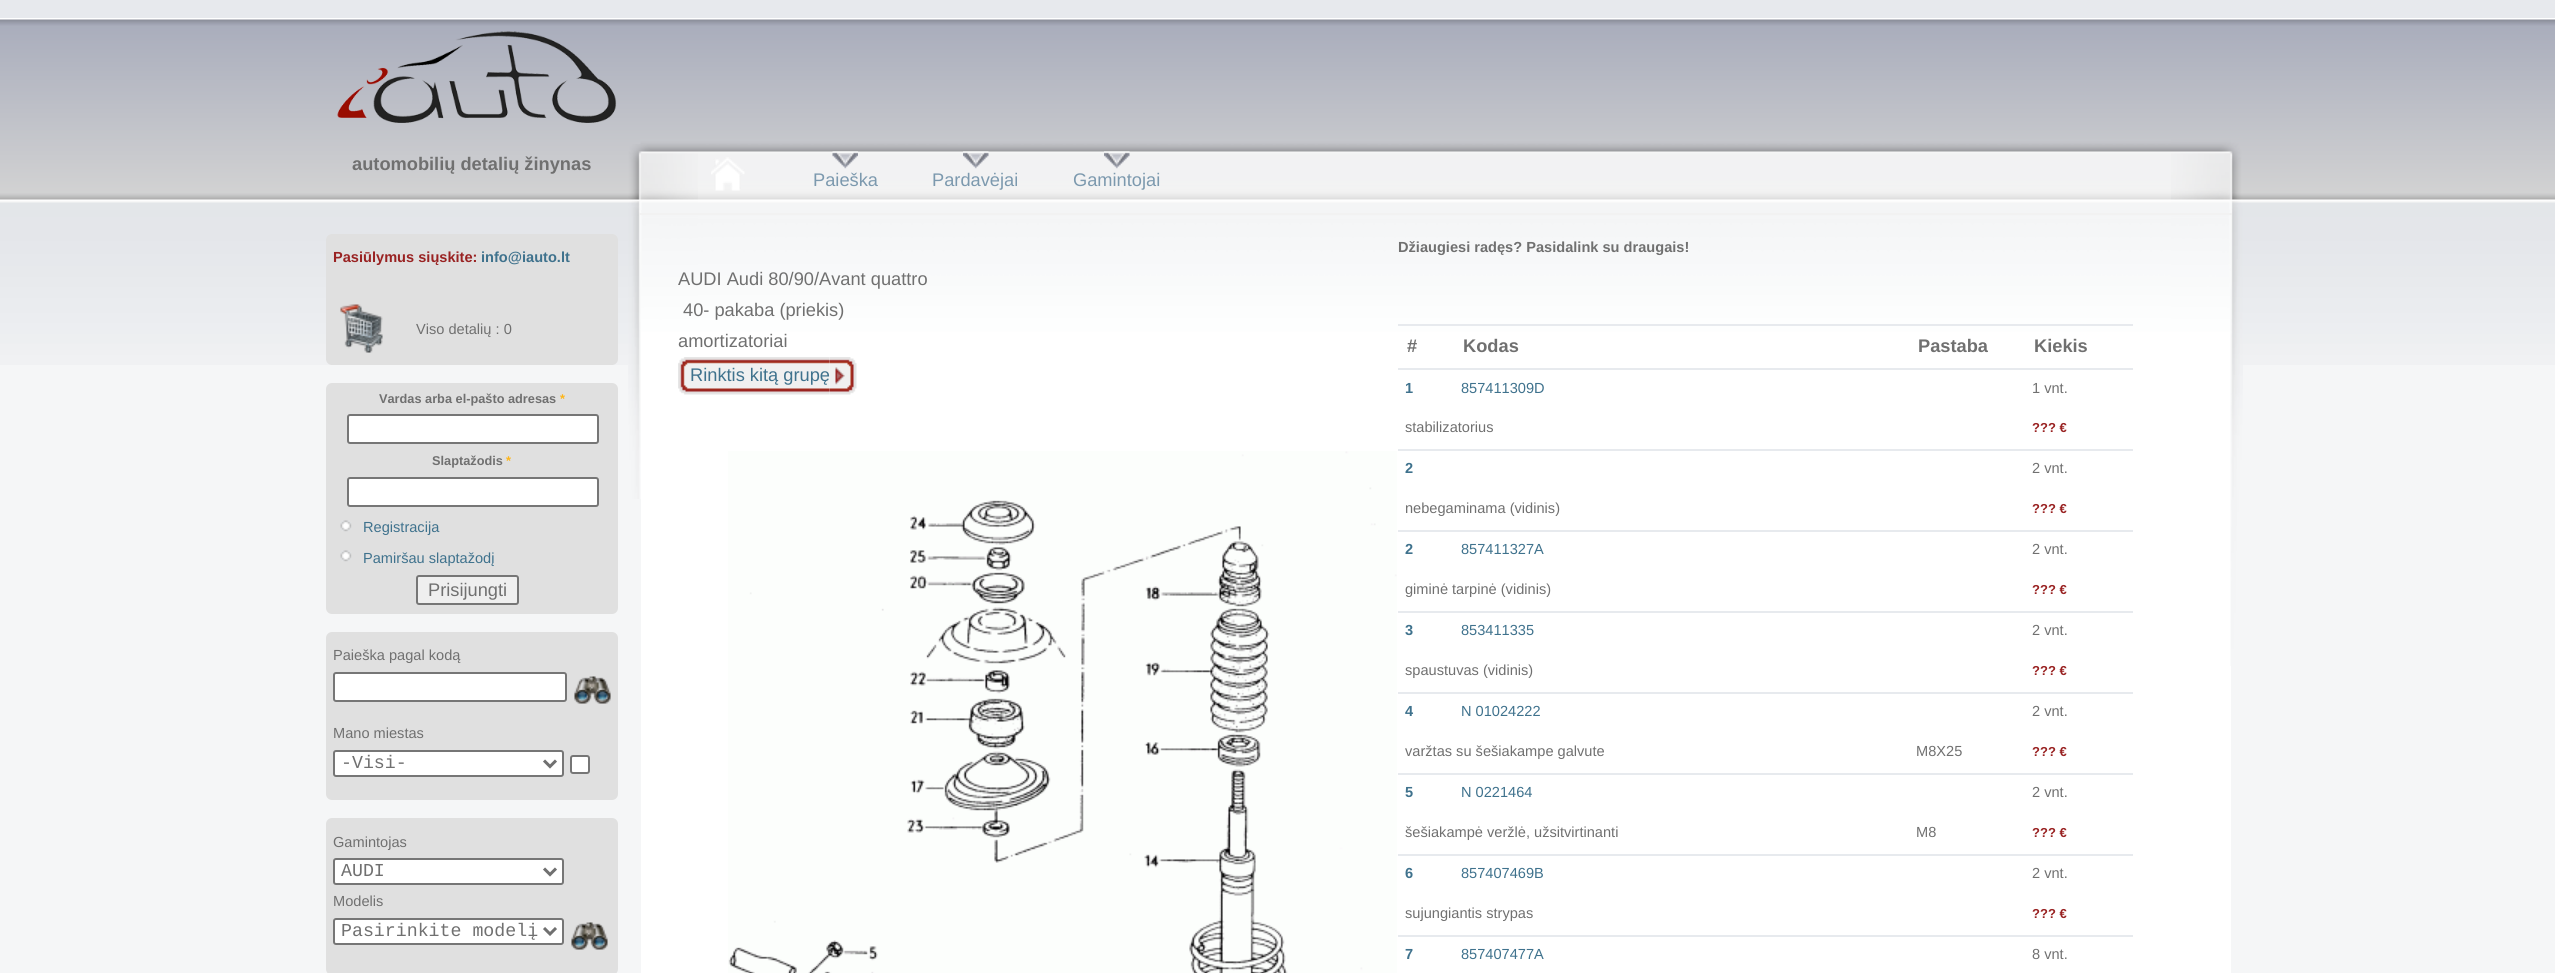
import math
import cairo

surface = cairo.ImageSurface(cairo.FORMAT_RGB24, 2555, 973)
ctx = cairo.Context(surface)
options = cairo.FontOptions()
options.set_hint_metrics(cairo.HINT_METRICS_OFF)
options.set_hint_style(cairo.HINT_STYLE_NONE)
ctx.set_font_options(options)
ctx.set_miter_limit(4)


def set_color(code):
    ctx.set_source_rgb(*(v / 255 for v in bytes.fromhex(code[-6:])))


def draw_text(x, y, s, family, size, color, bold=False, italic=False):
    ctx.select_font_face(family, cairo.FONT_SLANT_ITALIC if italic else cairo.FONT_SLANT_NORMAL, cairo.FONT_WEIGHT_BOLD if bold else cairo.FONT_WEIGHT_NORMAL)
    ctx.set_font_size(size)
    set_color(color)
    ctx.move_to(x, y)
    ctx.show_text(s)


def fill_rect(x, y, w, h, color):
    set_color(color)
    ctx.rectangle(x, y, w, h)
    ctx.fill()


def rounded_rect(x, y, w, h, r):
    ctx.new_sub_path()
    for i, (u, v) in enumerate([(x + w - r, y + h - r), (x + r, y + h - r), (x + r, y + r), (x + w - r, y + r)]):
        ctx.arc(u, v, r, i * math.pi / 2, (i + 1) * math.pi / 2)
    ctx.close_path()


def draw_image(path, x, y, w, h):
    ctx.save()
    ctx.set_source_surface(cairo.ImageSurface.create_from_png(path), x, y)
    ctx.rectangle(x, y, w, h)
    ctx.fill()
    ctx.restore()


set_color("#f5f6f7")
ctx.paint()
fill_rect(0, 0, 2555, 18, "#e7e9ed")
draw_image("assets/img1.png", 0, 18, 2555, 347)
draw_image("assets/img2.png", 337, 31, 280, 92)
draw_text(352, 170, "automobilių detalių žinynas", "Liberation Sans", 18.25, "#707070", bold=True)
set_color("#e0e0e0")
rounded_rect(326, 234, 292, 131, 6)
ctx.fill()
draw_text(333, 262, "Pasiūlymus siųskite:", "Liberation Sans", 14.6, "#992222", bold=True)
draw_text(481, 262, "info@iauto.lt", "Liberation Sans", 14.6, "#3f728d", bold=True)
draw_image("assets/img3.png", 340, 304, 43, 49)
draw_text(416, 334, "Viso detalių : 0", "Liberation Sans", 14.6, "#707070")
set_color("#e0e0e0")
rounded_rect(326, 383, 292, 231, 6)
ctx.fill()
draw_text(379, 403, "Vardas arba el-pašto adresas", "Liberation Sans", 12.75, "#707070", bold=True)
draw_text(560, 403, "*", "Liberation Sans", 12.75, "#feb517", bold=True)
set_color("#ffffff")
rounded_rect(348, 415, 250, 28, 2)
ctx.fill_preserve()
set_color("#767676")
ctx.stroke()
draw_text(432, 465, "Slaptažodis", "Liberation Sans", 12.75, "#707070", bold=True)
draw_text(506, 465, "*", "Liberation Sans", 12.75, "#feb517", bold=True)
set_color("#ffffff")
rounded_rect(348, 478, 250, 28, 2)
ctx.fill_preserve()
set_color("#767676")
ctx.stroke()
draw_image("assets/img4.png", 340, 520, 12, 12)
draw_text(363, 532, "Registracija", "Liberation Sans", 14.6, "#3f728d")
draw_image("assets/img4.png", 340, 550, 12, 12)
draw_text(363, 563, "Pamiršau slaptažodį", "Liberation Sans", 14.6, "#3f728d")
set_color("#efefef")
rounded_rect(417, 576, 101, 28, 2)
ctx.fill_preserve()
set_color("#767676")
ctx.stroke()
draw_text(428, 596, "Prisijungti", "Liberation Sans", 18.25, "#707070")
set_color("#e0e0e0")
rounded_rect(326, 632, 292, 168, 6)
ctx.fill()
draw_text(333, 660, "Paieška pagal kodą", "Liberation Sans", 14.6, "#707070")
set_color("#ffffff")
rounded_rect(334, 673, 232, 28, 2)
ctx.fill_preserve()
set_color("#767676")
ctx.stroke()
draw_image("assets/img5.png", 574, 676, 37, 28)
draw_text(333, 738, "Mano miestas", "Liberation Sans", 14.6, "#707070")
set_color("#ffffff")
rounded_rect(334, 751, 229, 25, 2)
ctx.fill_preserve()
set_color("#767676")
ctx.stroke()
ctx.new_path()
ctx.move_to(544, 760.5)
ctx.line_to(550, 766.5)
ctx.line_to(556, 760.5)
set_color("#707070")
ctx.set_line_width(3)
ctx.stroke()
draw_text(341, 768, "-Visi-", "Liberation Mono", 18.25, "#707070")
set_color("#ffffff")
rounded_rect(571, 756, 18, 17, 2)
ctx.fill_preserve()
set_color("#767676")
ctx.set_line_width(2)
ctx.stroke()
set_color("#e0e0e0")
rounded_rect(326, 818, 292, 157, 6)
ctx.fill()
draw_text(333, 847, "Gamintojas", "Liberation Sans", 14.6, "#707070")
set_color("#ffffff")
rounded_rect(334, 859, 229, 25, 2)
ctx.fill_preserve()
set_color("#767676")
ctx.stroke()
ctx.new_path()
ctx.move_to(544, 868.5)
ctx.line_to(550, 874.5)
ctx.line_to(556, 868.5)
set_color("#707070")
ctx.set_line_width(3)
ctx.stroke()
draw_text(341, 876, "AUDI", "Liberation Mono", 18.25, "#707070")
draw_text(333, 906, "Modelis", "Liberation Sans", 14.6, "#707070")
set_color("#ffffff")
rounded_rect(334, 919, 229, 25, 2)
ctx.fill_preserve()
set_color("#767676")
ctx.set_line_width(2)
ctx.stroke()
ctx.new_path()
ctx.move_to(544, 928)
ctx.line_to(550, 934)
ctx.line_to(556, 928)
set_color("#707070")
ctx.set_line_width(3)
ctx.stroke()
draw_text(341, 936, "Pasirinkite modelį", "Liberation Mono", 18.25, "#707070")
draw_image("assets/img5.png", 571, 922, 37, 28)
fill_rect(641, 438, 1590, 535, "#ffffff")
draw_image("assets/img6.png", 640, 138, 1531, 300)
draw_image("assets/img7.png", 2171, 138, 72, 528)
draw_image("assets/img8.png", 628, 144, 70, 355)
draw_image("assets/img9.png", 711, 157, 34, 34)
draw_image("assets/img10.png", 832, 151, 26, 18)
draw_text(813, 186, "Paieška", "Liberation Sans", 18.25, "#7c99ae")
draw_image("assets/img11.png", 963, 151, 26, 18)
draw_text(932, 186, "Pardavėjai", "Liberation Sans", 18.25, "#7c99ae")
draw_image("assets/img12.png", 1104, 151, 26, 18)
draw_text(1073, 186, "Gamintojai", "Liberation Sans", 18.25, "#7c99ae")
fill_rect(639, 213, 1593, 2, "#f2f2f2")
draw_text(1398, 252, "Džiaugiesi radęs? Pasidalink su draugais!", "Liberation Sans", 14.6, "#707070", bold=True)
draw_text(678, 285, "AUDI Audi 80/90/Avant quattro", "Liberation Sans", 18.25, "#707070")
draw_text(683, 316, "40- pakaba (priekis)", "Liberation Sans", 18.25, "#707070")
draw_text(678, 347, "amortizatoriai", "Liberation Sans", 18.25, "#707070")
draw_image("assets/img13.png", 829, 357, 28, 38)
draw_image("assets/img14.png", 678, 357, 152, 38)
draw_text(690, 381, "Rinktis kitą grupę", "Liberation Sans", 18.25, "#3f728d")
draw_image("assets/img15.png", 728, 451, 669, 522)
draw_text(1407, 352, "#", "Liberation Sans", 18.25, "#707070", bold=True)
draw_text(1463, 352, "Kodas", "Liberation Sans", 18.25, "#707070", bold=True)
draw_text(1918, 352, "Pastaba", "Liberation Sans", 18.25, "#707070", bold=True)
fill_rect(1398, 324, 735, 2, "#e7eaee")
draw_text(2034, 352, "Kiekis", "Liberation Sans", 18.25, "#707070", bold=True)
fill_rect(1398, 368, 735, 2, "#e7eaee")
draw_text(1405, 393, "1", "Liberation Sans", 14.6, "#3f728d", bold=True)
draw_text(1461, 393, "857411309D", "Liberation Sans", 14.6, "#3f728d")
draw_text(2032, 393, "1 vnt.", "Liberation Sans", 14.6, "#707070")
draw_text(1405, 432, "stabilizatorius", "Liberation Sans", 14.6, "#707070")
draw_text(2032, 432, "??? €", "Liberation Sans", 13, "#992222", bold=True)
fill_rect(1398, 449, 735, 2, "#e7eaee")
draw_text(1405, 473, "2", "Liberation Sans", 14.6, "#3f728d", bold=True)
draw_text(2032, 473, "2 vnt.", "Liberation Sans", 14.6, "#707070")
draw_text(1405, 513, "nebegaminama (vidinis)", "Liberation Sans", 14.6, "#707070")
draw_text(2032, 513, "??? €", "Liberation Sans", 13, "#992222", bold=True)
fill_rect(1398, 530, 735, 2, "#e7eaee")
draw_text(1405, 554, "2", "Liberation Sans", 14.6, "#3f728d", bold=True)
draw_text(1461, 554, "857411327A", "Liberation Sans", 14.6, "#3f728d")
draw_text(2032, 554, "2 vnt.", "Liberation Sans", 14.6, "#707070")
draw_text(1405, 594, "giminė tarpinė (vidinis)", "Liberation Sans", 14.6, "#707070")
draw_text(2032, 594, "??? €", "Liberation Sans", 13, "#992222", bold=True)
fill_rect(1398, 611, 735, 2, "#e7eaee")
draw_text(1405, 635, "3", "Liberation Sans", 14.6, "#3f728d", bold=True)
draw_text(1461, 635, "853411335", "Liberation Sans", 14.6, "#3f728d")
draw_text(2032, 635, "2 vnt.", "Liberation Sans", 14.6, "#707070")
draw_text(1405, 675, "spaustuvas (vidinis)", "Liberation Sans", 14.6, "#707070")
draw_text(2032, 675, "??? €", "Liberation Sans", 13, "#992222", bold=True)
fill_rect(1398, 692, 735, 2, "#e7eaee")
draw_text(1405, 716, "4", "Liberation Sans", 14.6, "#3f728d", bold=True)
draw_text(1461, 716, "N 01024222", "Liberation Sans", 14.6, "#3f728d")
draw_text(2032, 716, "2 vnt.", "Liberation Sans", 14.6, "#707070")
draw_text(1405, 756, "varžtas su šešiakampe galvute", "Liberation Sans", 14.6, "#707070")
draw_text(1916, 756, "M8X25", "Liberation Sans", 14.6, "#707070")
draw_text(2032, 756, "??? €", "Liberation Sans", 13, "#992222", bold=True)
fill_rect(1398, 773, 735, 2, "#e7eaee")
draw_text(1405, 797, "5", "Liberation Sans", 14.6, "#3f728d", bold=True)
draw_text(1461, 797, "N 0221464", "Liberation Sans", 14.6, "#3f728d")
draw_text(2032, 797, "2 vnt.", "Liberation Sans", 14.6, "#707070")
draw_text(1405, 837, "šešiakampė veržlė, užsitvirtinanti", "Liberation Sans", 14.6, "#707070")
draw_text(1916, 837, "M8", "Liberation Sans", 14.6, "#707070")
draw_text(2032, 837, "??? €", "Liberation Sans", 13, "#992222", bold=True)
fill_rect(1398, 854, 735, 2, "#e7eaee")
draw_text(1405, 878, "6", "Liberation Sans", 14.6, "#3f728d", bold=True)
draw_text(1461, 878, "857407469B", "Liberation Sans", 14.6, "#3f728d")
draw_text(2032, 878, "2 vnt.", "Liberation Sans", 14.6, "#707070")
draw_text(1405, 918, "sujungiantis strypas", "Liberation Sans", 14.6, "#707070")
draw_text(2032, 918, "??? €", "Liberation Sans", 13, "#992222", bold=True)
fill_rect(1398, 935, 735, 2, "#e7eaee")
draw_text(1405, 959, "7", "Liberation Sans", 14.6, "#3f728d", bold=True)
draw_text(1461, 959, "857407477A", "Liberation Sans", 14.6, "#3f728d")
draw_text(2032, 959, "8 vnt.", "Liberation Sans", 14.6, "#707070")
surface.write_to_png("output.png")
